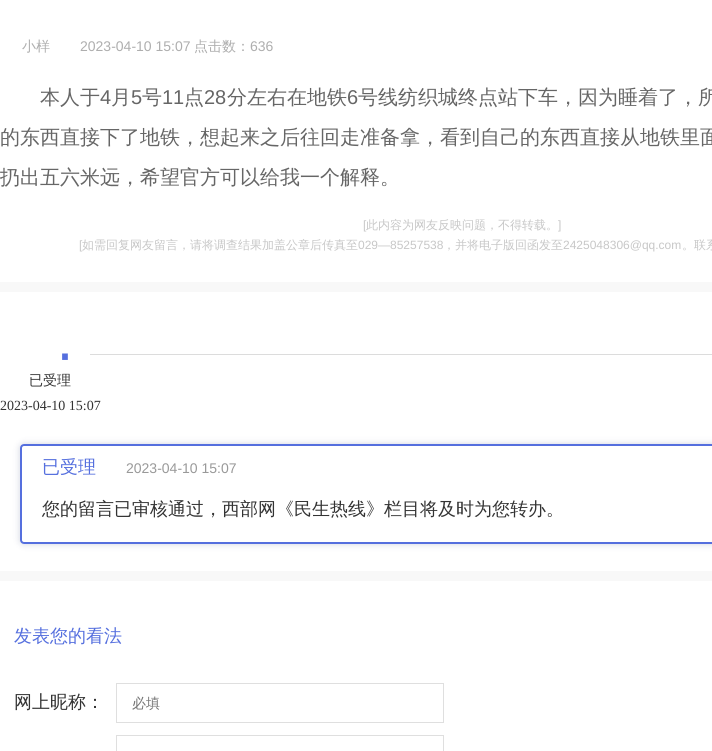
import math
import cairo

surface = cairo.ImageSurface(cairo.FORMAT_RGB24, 712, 751)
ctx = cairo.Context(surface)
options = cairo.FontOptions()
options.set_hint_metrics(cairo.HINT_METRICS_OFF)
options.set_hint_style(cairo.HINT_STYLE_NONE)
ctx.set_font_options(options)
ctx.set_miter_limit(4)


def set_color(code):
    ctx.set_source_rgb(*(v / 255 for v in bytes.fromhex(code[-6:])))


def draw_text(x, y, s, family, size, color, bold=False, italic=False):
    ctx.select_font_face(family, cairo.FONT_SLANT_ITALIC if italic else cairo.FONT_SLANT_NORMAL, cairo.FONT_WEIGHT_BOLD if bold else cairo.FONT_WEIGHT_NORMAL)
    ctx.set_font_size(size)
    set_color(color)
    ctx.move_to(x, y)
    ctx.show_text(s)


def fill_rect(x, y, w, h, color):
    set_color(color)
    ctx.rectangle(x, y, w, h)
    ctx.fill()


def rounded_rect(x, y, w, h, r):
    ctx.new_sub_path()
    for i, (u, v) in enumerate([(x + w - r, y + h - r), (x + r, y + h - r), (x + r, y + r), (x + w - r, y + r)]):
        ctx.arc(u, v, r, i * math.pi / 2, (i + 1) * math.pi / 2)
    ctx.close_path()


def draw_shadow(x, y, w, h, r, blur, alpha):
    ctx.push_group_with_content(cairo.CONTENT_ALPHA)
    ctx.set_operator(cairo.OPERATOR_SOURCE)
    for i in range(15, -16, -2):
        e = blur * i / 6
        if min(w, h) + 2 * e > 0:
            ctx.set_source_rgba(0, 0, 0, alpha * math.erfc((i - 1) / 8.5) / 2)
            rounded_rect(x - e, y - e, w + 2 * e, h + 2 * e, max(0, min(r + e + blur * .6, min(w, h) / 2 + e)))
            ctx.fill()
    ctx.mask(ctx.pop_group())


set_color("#ffffff")
ctx.paint()
draw_text(22, 51, "小样", "WenQuanYi Zen Hei Medium", 14, "#aeaeae")
draw_text(80, 51, "2023-04-10 15:07", "Liberation Sans", 14, "#aeaeae")
draw_text(194, 51, "点击数：", "WenQuanYi Zen Hei Medium", 14, "#aeaeae")
draw_text(250, 51, "636", "Liberation Sans", 14, "#aeaeae")
draw_text(40, 104, "本人于", "WenQuanYi Zen Hei Medium", 20, "#666666")
draw_text(100, 104, "4", "Liberation Sans", 20, "#666666")
draw_text(111, 104, "月", "WenQuanYi Zen Hei Medium", 20, "#666666")
draw_text(131, 104, "5", "Liberation Sans", 20, "#666666")
draw_text(142, 104, "号", "WenQuanYi Zen Hei Medium", 20, "#666666")
draw_text(162, 104, "11", "Liberation Sans", 20, "#666666")
draw_text(184, 104, "点", "WenQuanYi Zen Hei Medium", 20, "#666666")
draw_text(204, 104, "28", "Liberation Sans", 20, "#666666")
draw_text(227, 104, "分左右在地铁", "WenQuanYi Zen Hei Medium", 20, "#666666")
draw_text(347, 104, "6", "Liberation Sans", 20, "#666666")
draw_text(358, 104, "号线纺织城终点站下车，因为睡着了，所", "WenQuanYi Zen Hei Medium", 20, "#666666")
draw_text(0, 144, "的东西直接下了地铁，想起来之后往回走准备拿，看到自己的东西直接从地铁里面", "WenQuanYi Zen Hei Medium", 20, "#666666")
draw_text(0, 184, "扔出五六米远，希望官方可以给我一个解释。", "WenQuanYi Zen Hei Medium", 20, "#666666")
draw_text(363, 229, "[", "Liberation Sans", 12, "#c7c7c7")
draw_text(366, 229, "此内容为网友反映问题，不得转载。", "WenQuanYi Zen Hei Medium", 12, "#c7c7c7")
draw_text(558, 229, "]", "Liberation Sans", 12, "#c7c7c7")
draw_text(79, 249, "[", "Liberation Sans", 12, "#c7c7c7")
draw_text(82, 249, "如需回复网友留言，请将调查结果加盖公章后传真至", "WenQuanYi Zen Hei Medium", 12, "#c7c7c7")
draw_text(358, 249, "029—85257538", "Liberation Sans", 12, "#c7c7c7")
draw_text(443, 249, "，并将电子版回函发至", "WenQuanYi Zen Hei Medium", 12, "#c7c7c7")
draw_text(563, 249, "2425048306@qq.com", "Liberation Sans", 12, "#c7c7c7")
draw_text(682, 249, "。联系", "WenQuanYi Zen Hei Medium", 12, "#c7c7c7")
fill_rect(0, 282, 712, 10, "#f8f8f8")
draw_text(55, 373, "·", "Liberation Sans", 60, "#556fde")
fill_rect(90, 354, 622, 1, "#dcdcdc")
draw_text(29, 385, "已受理", "WenQuanYi Zen Hei Medium", 14, "#333333")
draw_text(0, 410, "2023-04-10 15:07", "Liberation Serif", 14, "#333333")
ctx.save()
ctx.set_fill_rule(cairo.FILL_RULE_EVEN_ODD)
ctx.new_path()
ctx.move_to(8, 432)
ctx.line_to(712, 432)
ctx.line_to(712, 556)
ctx.line_to(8, 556)
ctx.close_path()
ctx.move_to(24, 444)
ctx.line_to(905, 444)
ctx.curve_to(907, 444, 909, 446, 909, 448)
ctx.line_to(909, 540)
ctx.curve_to(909, 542, 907, 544, 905, 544)
ctx.line_to(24, 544)
ctx.curve_to(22, 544, 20, 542, 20, 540)
ctx.line_to(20, 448)
ctx.curve_to(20, 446, 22, 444, 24, 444)
ctx.close_path()
ctx.clip()
set_color("#061556")
draw_shadow(20, 444, 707, 100, 4, 3.5, 0.18)
ctx.restore()
rounded_rect(21, 445, 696, 98, 3)
set_color("#556fde")
ctx.stroke()
draw_text(42, 473, "已受理", "WenQuanYi Zen Hei Medium", 18, "#556fde")
draw_text(126, 473, "2023-04-10 15:07", "Liberation Sans", 14, "#999999")
draw_text(42, 515, "您的留言已审核通过，西部网《民生热线》栏目将及时为您转办。", "WenQuanYi Zen Hei Medium", 18, "#333333")
fill_rect(0, 571, 712, 10, "#f8f8f8")
draw_text(14, 642, "发表您的看法", "WenQuanYi Zen Hei Medium", 18, "#556fde")
draw_text(14, 708, "网上昵称：", "WenQuanYi Zen Hei Medium", 18, "#333333")
ctx.rectangle(116.5, 683.5, 327, 39)
set_color("#dfdfdf")
ctx.set_line_width(1)
ctx.stroke()
draw_text(132, 708, "必填", "WenQuanYi Zen Hei Medium", 14, "#757575")
ctx.rectangle(116.5, 735.5, 327, 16)
set_color("#dfdfdf")
ctx.stroke()
surface.write_to_png("output.png")
